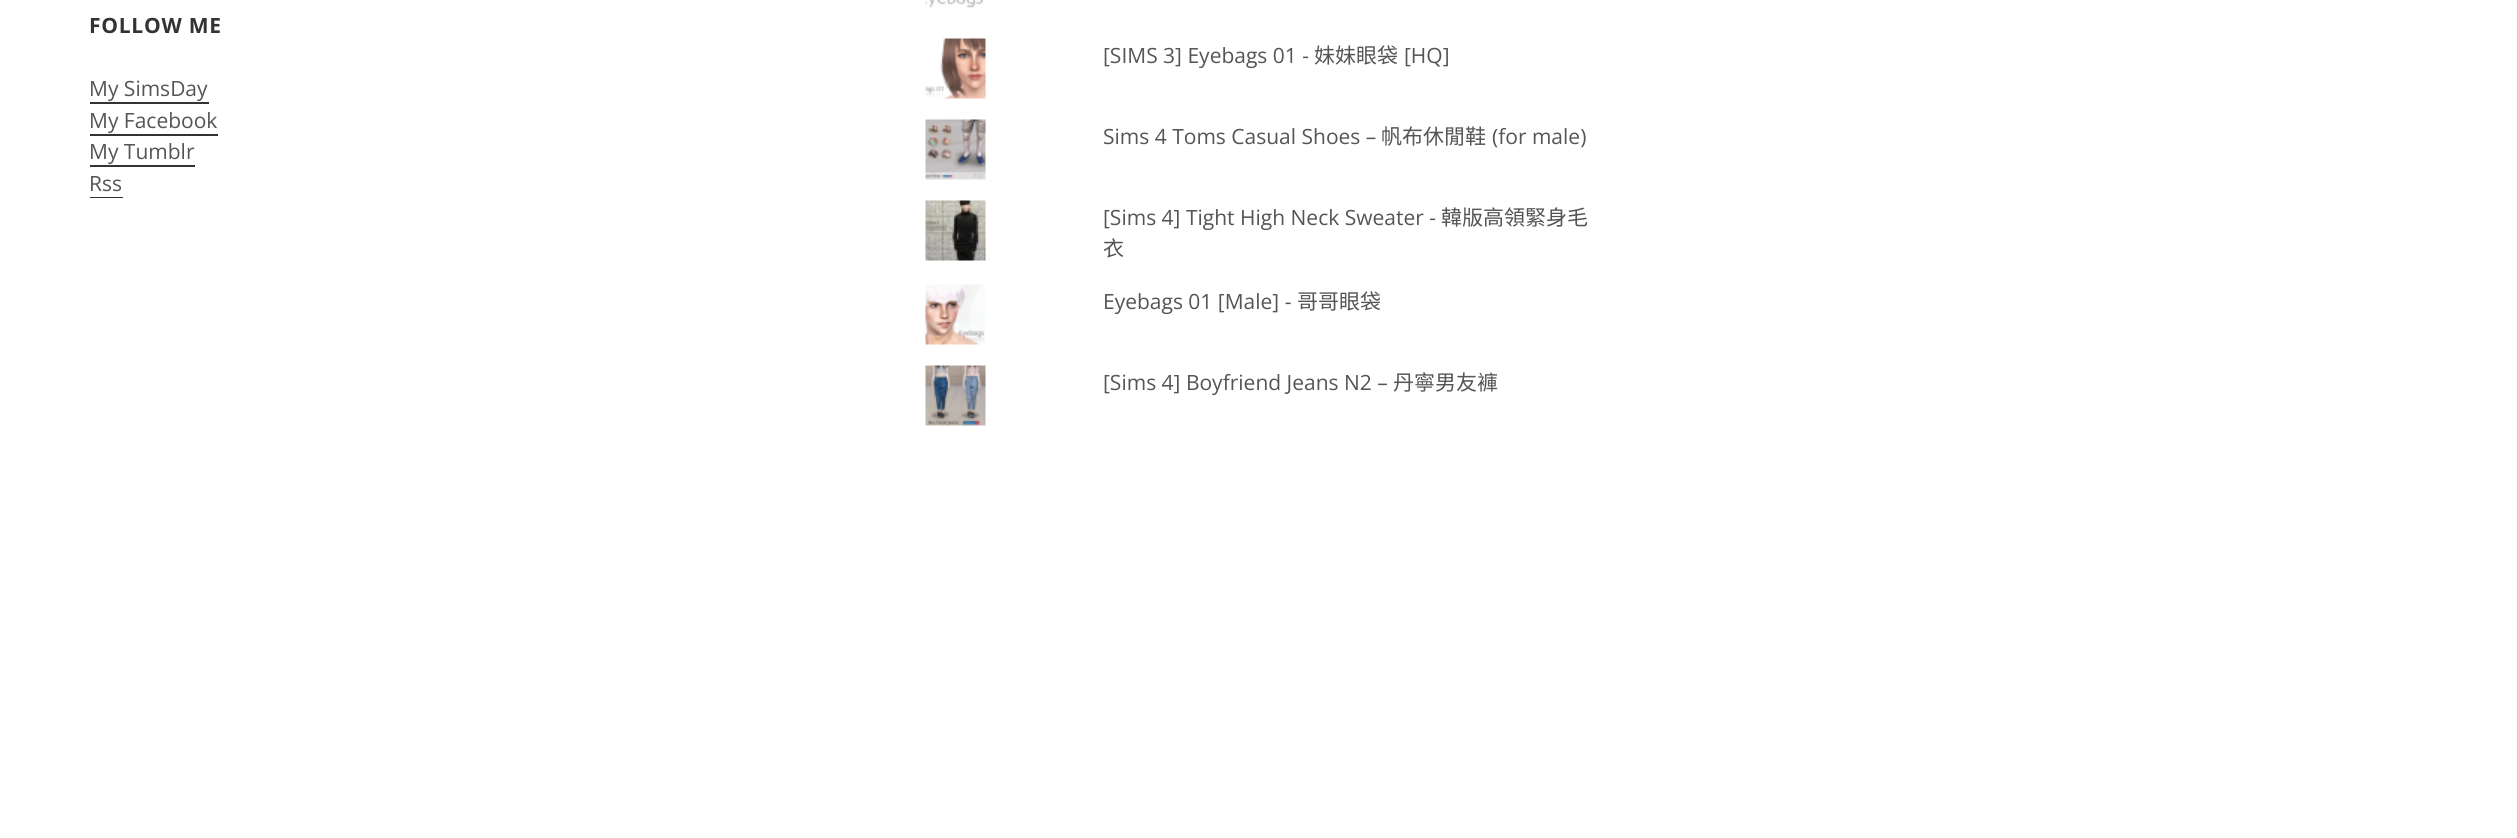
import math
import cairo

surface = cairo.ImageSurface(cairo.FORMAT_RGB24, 2517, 838)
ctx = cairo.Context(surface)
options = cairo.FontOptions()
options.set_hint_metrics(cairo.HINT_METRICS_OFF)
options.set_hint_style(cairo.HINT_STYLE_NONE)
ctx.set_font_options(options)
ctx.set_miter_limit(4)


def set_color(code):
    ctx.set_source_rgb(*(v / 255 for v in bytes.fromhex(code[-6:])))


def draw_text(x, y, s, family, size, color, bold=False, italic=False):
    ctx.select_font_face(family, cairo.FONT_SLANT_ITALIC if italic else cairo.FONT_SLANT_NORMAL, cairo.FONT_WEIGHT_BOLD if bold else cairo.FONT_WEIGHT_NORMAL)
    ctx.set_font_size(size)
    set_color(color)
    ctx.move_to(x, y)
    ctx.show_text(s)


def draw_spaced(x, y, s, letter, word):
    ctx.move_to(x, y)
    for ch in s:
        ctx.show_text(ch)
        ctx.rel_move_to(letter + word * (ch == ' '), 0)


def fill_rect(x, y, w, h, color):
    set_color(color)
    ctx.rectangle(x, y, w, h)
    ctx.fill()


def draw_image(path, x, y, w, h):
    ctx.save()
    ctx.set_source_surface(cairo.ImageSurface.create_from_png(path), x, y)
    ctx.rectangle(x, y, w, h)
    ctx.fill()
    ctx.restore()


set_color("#ffffff")
ctx.paint()
ctx.select_font_face("Open Sans", cairo.FONT_SLANT_NORMAL, cairo.FONT_WEIGHT_BOLD)
ctx.set_font_size(21)
set_color("#333333")
draw_spaced(89, 33, "FOLLOW ME", 0.75, 0)
draw_text(89, 96, "My SimsDay", "Open Sans", 21, "#555555")
fill_rect(90, 102, 119, 2, "#333333")
draw_text(89, 128, "My Facebook", "Open Sans", 21, "#555555")
fill_rect(90, 134, 128, 2, "#333333")
draw_text(89, 159, "My Tumblr", "Open Sans", 21, "#555555")
fill_rect(90, 165, 105, 2, "#333333")
draw_text(89, 191, "Rss", "Open Sans", 21, "#555555")
fill_rect(90, 197, 33, 1, "#333333")
draw_image("assets/img1.png", 925, 0, 59, 8)
draw_image("assets/img2.png", 925, 38, 61, 61)
draw_text(1103, 63, "[SIMS 3] Eyebags 01 -", "Open Sans", 21, "#555555")
draw_text(1314, 63, "妹妹眼袋", "Noto Sans CJK TC", 21, "#555555")
draw_text(1404, 63, "[HQ]", "Open Sans", 21, "#555555")
draw_image("assets/img3.png", 925, 119, 61, 61)
draw_text(1103, 144, "Sims 4 Toms Casual Shoes –", "Open Sans", 21, "#555555")
draw_text(1381, 144, "帆布休閒鞋", "Noto Sans CJK TC", 21, "#555555")
draw_text(1492, 144, "(for male)", "Open Sans", 21, "#555555")
draw_image("assets/img4.png", 925, 200, 61, 61)
draw_text(1103, 225, "[Sims 4] Tight High Neck Sweater -", "Open Sans", 21, "#555555")
draw_text(1441, 225, "韓版高領緊身毛", "Noto Sans CJK TC", 21, "#555555")
draw_text(1103, 256, "衣", "Noto Sans CJK TC", 21, "#555555")
draw_image("assets/img5.png", 925, 284, 60, 61)
draw_text(1103, 309, "Eyebags 01 [Male] -", "Open Sans", 21, "#555555")
draw_text(1297, 309, "哥哥眼袋", "Noto Sans CJK TC", 21, "#555555")
draw_image("assets/img6.png", 925, 365, 61, 61)
draw_text(1103, 390, "[Sims 4] Boyfriend Jeans N2 –", "Open Sans", 21, "#555555")
draw_text(1393, 390, "丹寧男友褲", "Noto Sans CJK TC", 21, "#555555")
surface.write_to_png("output.png")
